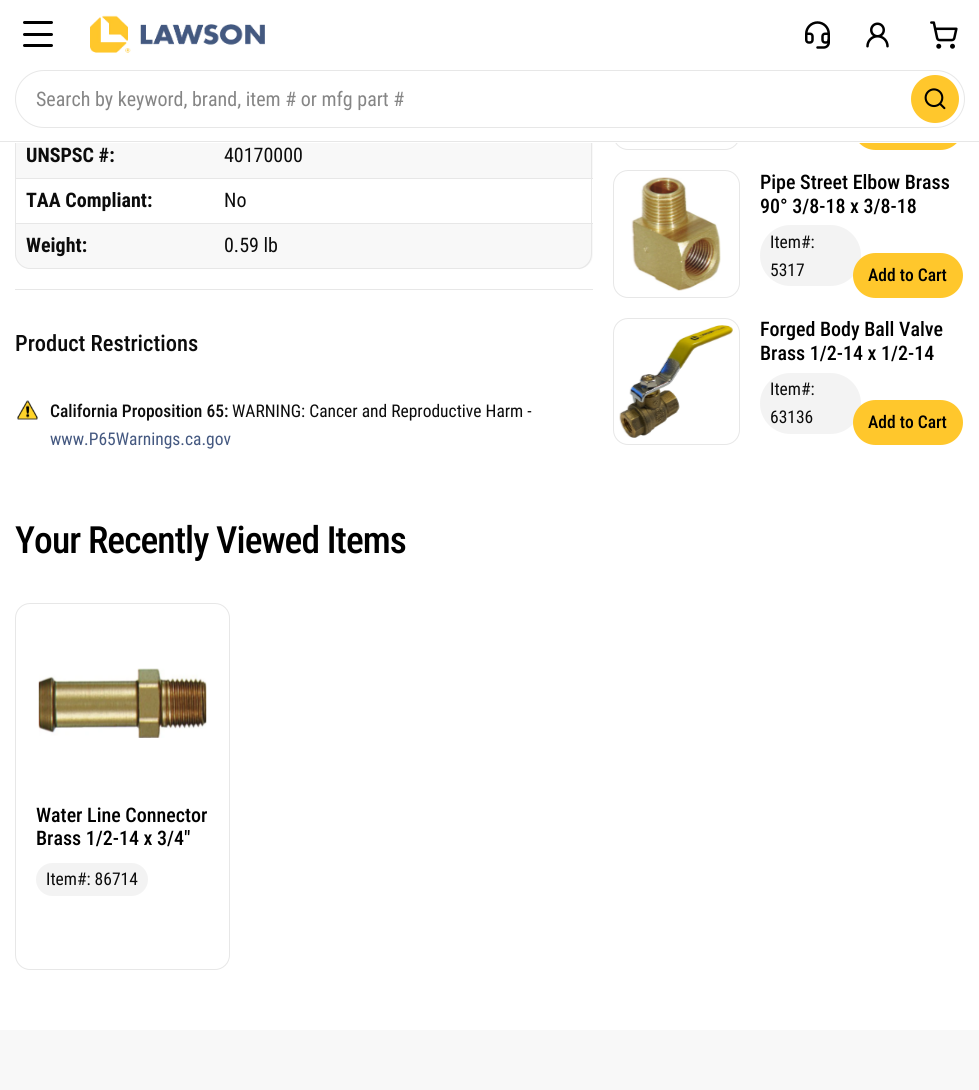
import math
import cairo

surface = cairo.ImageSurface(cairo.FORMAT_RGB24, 979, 1090)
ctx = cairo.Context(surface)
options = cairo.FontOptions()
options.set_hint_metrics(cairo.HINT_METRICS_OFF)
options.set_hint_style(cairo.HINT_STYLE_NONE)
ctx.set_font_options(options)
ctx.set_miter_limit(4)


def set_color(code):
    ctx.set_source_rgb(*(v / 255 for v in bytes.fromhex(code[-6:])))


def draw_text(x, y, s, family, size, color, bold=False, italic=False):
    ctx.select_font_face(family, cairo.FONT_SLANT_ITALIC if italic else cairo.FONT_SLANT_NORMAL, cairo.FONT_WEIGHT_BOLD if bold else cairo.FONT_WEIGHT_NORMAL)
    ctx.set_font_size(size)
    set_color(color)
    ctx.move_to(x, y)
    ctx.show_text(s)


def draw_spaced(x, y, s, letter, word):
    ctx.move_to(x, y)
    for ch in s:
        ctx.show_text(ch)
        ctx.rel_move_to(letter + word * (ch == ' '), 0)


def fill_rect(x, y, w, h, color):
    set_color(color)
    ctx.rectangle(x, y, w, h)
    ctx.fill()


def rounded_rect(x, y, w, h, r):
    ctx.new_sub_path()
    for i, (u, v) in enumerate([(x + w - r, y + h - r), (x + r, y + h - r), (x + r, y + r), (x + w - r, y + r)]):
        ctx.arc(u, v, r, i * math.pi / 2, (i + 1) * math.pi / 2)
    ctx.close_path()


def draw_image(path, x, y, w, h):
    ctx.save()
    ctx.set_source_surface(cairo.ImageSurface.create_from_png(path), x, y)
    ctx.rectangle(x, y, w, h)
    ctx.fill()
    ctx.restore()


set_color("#ffffff")
ctx.paint()
rounded_rect(613.5, 23.5, 126, 126, 14.5)
set_color("#e7e7e7")
ctx.set_line_width(1)
ctx.stroke()
set_color("#ffc72c")
rounded_rect(853, 105, 110, 45, 22.5)
ctx.fill()
fill_rect(613, 23, 350, 120, "#ffffff")
fill_rect(0, 141, 979, 1, "#e7e7e7")
set_color("#000000")
rounded_rect(23, 21, 30, 3, 1.5)
ctx.fill()
rounded_rect(23, 33, 30, 3, 1.5)
ctx.fill()
rounded_rect(23, 44, 30, 3, 1.5)
ctx.fill()
draw_image("assets/img1.png", 90, 15, 175, 38)
draw_image("assets/img2.png", 805, 21, 25, 28)
draw_image("assets/img3.png", 866, 22, 23, 26)
draw_image("assets/img4.png", 930, 21, 28, 28)
rounded_rect(15.5, 70.5, 949, 57, 28.5)
set_color("#e7e7e7")
ctx.stroke()
draw_text(36, 106, "Search by keyword, brand, item # or mfg part #", "Roboto Condensed", 20, "#858585")
set_color("#ffc72c")
ctx.new_path()
ctx.arc(935, 99, 24, 0, 2 * math.pi)
ctx.fill()
draw_image("assets/img5.png", 924, 88, 22, 22)
fill_rect(15, 289, 578, 1, "#e7e7e7")
fill_rect(16, 143, 577, 35, "#f8f8f8")
fill_rect(591, 143, 1, 81, "#e7e7e7")
fill_rect(15, 178, 578, 1, "#e7e7e7")
fill_rect(15, 143, 1, 36, "#e7e7e7")
draw_text(26, 162, "UNSPSC #:", "Roboto Condensed", 20, "#0c0c0c", bold=True)
draw_text(224, 162, "40170000", "Roboto Condensed", 20, "#0c0c0c")
fill_rect(15, 223, 578, 1, "#e7e7e7")
fill_rect(15, 179, 1, 45, "#e7e7e7")
draw_text(26, 207, "TAA Compliant:", "Roboto Condensed", 20, "#0c0c0c", bold=True)
draw_text(224, 207, "No", "Roboto Condensed", 20, "#0c0c0c")
set_color("#f8f8f8")
ctx.new_path()
ctx.move_to(15, 224)
ctx.line_to(593, 224)
ctx.line_to(593, 254)
ctx.curve_to(593, 262.5, 586.5, 269, 578, 269)
ctx.line_to(30, 269)
ctx.curve_to(21.5, 269, 15, 262.5, 15, 254)
ctx.close_path()
ctx.fill()
set_color("#e7e7e7")
ctx.set_fill_rule(cairo.FILL_RULE_EVEN_ODD)
ctx.new_path()
ctx.move_to(15, 224)
ctx.line_to(592, 224)
ctx.line_to(592, 254)
ctx.curve_to(592, 262, 586, 269, 578, 269)
ctx.line_to(30, 269)
ctx.curve_to(22, 269, 15, 262, 15, 254)
ctx.close_path()
ctx.move_to(16, 224)
ctx.line_to(591, 224)
ctx.line_to(591, 254)
ctx.curve_to(591, 261, 585, 268, 578, 268)
ctx.line_to(30, 268)
ctx.curve_to(22, 268, 16, 261, 16, 254)
ctx.close_path()
ctx.fill()
draw_text(26, 252, "Weight:", "Roboto Condensed", 20, "#0c0c0c", bold=True)
draw_text(224, 252, "0.59 lb", "Roboto Condensed", 20, "#0c0c0c")
rounded_rect(613.5, 170.5, 126, 127, 14.5)
set_color("#e7e7e7")
ctx.stroke()
draw_image("assets/img6.png", 631, 177, 90, 114)
draw_text(760, 189, "Pipe Street Elbow Brass", "Roboto Condensed Medium", 20, "#000000")
draw_text(760, 213, "90° 3/8-18 x 3/8-18", "Roboto Condensed Medium", 20, "#000000")
set_color("#f3f3f3")
rounded_rect(760, 225, 101, 61, 30.5)
ctx.fill()
draw_text(770, 248, "Item#:", "Roboto Condensed", 17.5, "#0c0c0c")
draw_text(770, 276, "5317", "Roboto Condensed", 17.5, "#0c0c0c")
set_color("#ffc72c")
rounded_rect(853, 253, 110, 45, 22.5)
ctx.fill()
draw_text(868, 281, "Add to Cart", "Roboto Condensed Medium", 17.5, "#000000")
rounded_rect(613.5, 318.5, 126, 126, 14.5)
set_color("#e7e7e7")
ctx.stroke()
draw_image("assets/img7.png", 619, 325, 114, 113)
draw_text(760, 336, "Forged Body Ball Valve", "Roboto Condensed Medium", 20, "#000000")
draw_text(760, 360, "Brass 1/2-14 x 1/2-14", "Roboto Condensed Medium", 20, "#000000")
set_color("#f3f3f3")
rounded_rect(760, 373, 101, 61, 30.5)
ctx.fill()
draw_text(770, 395, "Item#:", "Roboto Condensed", 17.5, "#0c0c0c")
draw_text(770, 423, "63136", "Roboto Condensed", 17.5, "#0c0c0c")
set_color("#ffc72c")
rounded_rect(853, 400, 110, 45, 22.5)
ctx.fill()
draw_text(868, 428, "Add to Cart", "Roboto Condensed Medium", 17.5, "#000000")
draw_text(15, 351, "Product Restrictions", "Roboto Condensed Medium", 22.5, "#0c0c0c")
draw_image("assets/img8.png", 17, 400, 21, 20)
draw_text(50, 417, "California Proposition 65:", "Roboto Condensed Medium", 17.5, "#0c0c0c")
draw_text(232, 417, "WARNING: Cancer and Reproductive Harm -", "Roboto Condensed", 17.5, "#0c0c0c")
draw_text(50, 445, "www.P65Warnings.ca.gov", "Roboto Condensed", 17.5, "#445880")
ctx.select_font_face("Roboto Condensed Medium")
ctx.set_font_size(37.5)
set_color("#000000")
draw_spaced(15, 553, "Your Recently Viewed Items", -0.95, 0)
rounded_rect(15.5, 603.5, 214, 366, 14.5)
set_color("#e7e7e7")
ctx.stroke()
draw_image("assets/img9.png", 38, 668, 169, 70)
draw_text(36, 822, "Water Line Connector", "Roboto Condensed Medium", 20, "#000000")
draw_text(36, 845, "Brass 1/2-14 x 3/4\"", "Roboto Condensed Medium", 20, "#000000")
set_color("#f3f3f3")
rounded_rect(36, 863, 112, 33, 16.5)
ctx.fill()
draw_text(46, 885, "Item#: 86714", "Roboto Condensed", 17.5, "#0c0c0c")
fill_rect(0, 1030, 979, 60, "#f8f8f8")
surface.write_to_png("output.png")
